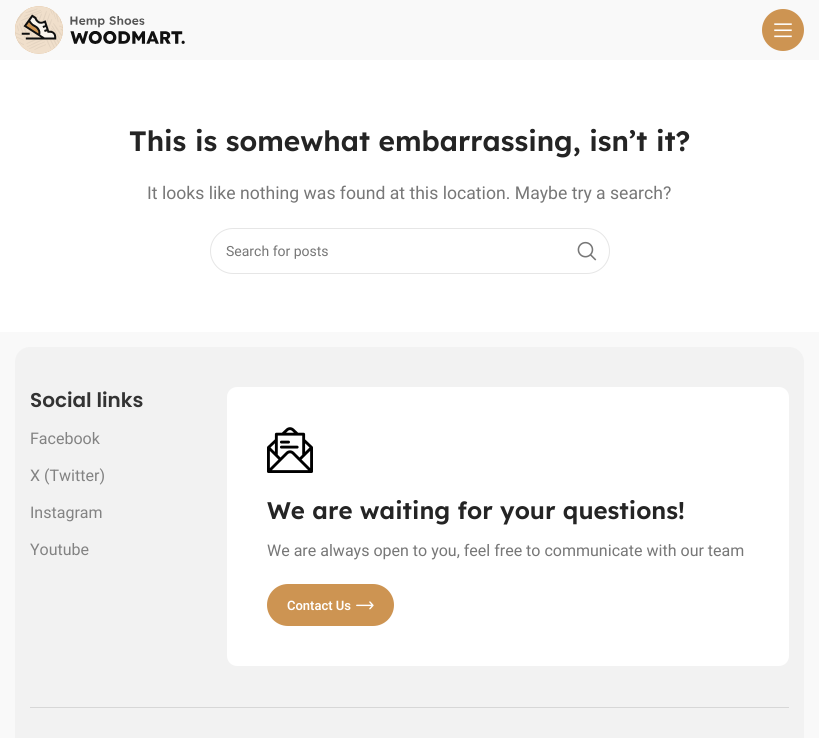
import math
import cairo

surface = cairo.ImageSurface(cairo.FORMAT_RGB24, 819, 738)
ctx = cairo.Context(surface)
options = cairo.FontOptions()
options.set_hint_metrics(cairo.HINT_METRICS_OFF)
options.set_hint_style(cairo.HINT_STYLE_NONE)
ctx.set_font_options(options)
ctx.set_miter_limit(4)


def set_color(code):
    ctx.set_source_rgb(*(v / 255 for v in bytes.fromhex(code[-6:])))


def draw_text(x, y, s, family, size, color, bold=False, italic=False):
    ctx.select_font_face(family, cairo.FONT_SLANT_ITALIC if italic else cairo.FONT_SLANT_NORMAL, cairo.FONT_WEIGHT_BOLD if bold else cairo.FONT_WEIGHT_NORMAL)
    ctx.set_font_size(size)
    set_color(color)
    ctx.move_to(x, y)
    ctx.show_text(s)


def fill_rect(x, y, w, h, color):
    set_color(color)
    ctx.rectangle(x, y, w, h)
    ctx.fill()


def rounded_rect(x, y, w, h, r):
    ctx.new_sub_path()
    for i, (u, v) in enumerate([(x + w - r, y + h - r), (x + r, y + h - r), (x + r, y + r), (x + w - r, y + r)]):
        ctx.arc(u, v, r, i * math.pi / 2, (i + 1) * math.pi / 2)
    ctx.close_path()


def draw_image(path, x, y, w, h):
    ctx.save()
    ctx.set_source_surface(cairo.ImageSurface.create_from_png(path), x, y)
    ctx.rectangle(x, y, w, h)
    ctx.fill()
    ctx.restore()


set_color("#ffffff")
ctx.paint()
fill_rect(0, 0, 819, 60, "#f9f9f9")
draw_image("assets/img1.png", 15, 6, 170, 48)
set_color("#cd9452")
ctx.arc(783, 30, 21, 0, 2 * math.pi)
ctx.fill()
draw_image("assets/img2.png", 774, 23, 18, 15)
draw_text(129, 151, "This is somewhat embarrassing, isn’t it?", "Lexend SemiBold", 28, "#242424")
draw_text(147, 199, "It looks like nothing was found at this location. Maybe try a search?", "Heebo", 17.6, "#777777")
rounded_rect(210.5, 228.5, 399, 45, 22.5)
set_color("#e6e6e6")
ctx.set_line_width(1)
ctx.stroke()
draw_text(226, 256, "Search for posts", "Heebo", 14, "#777777")
draw_image("assets/img3.png", 577, 241, 20, 20)
fill_rect(0, 332, 819, 30, "#f9f9f9")
set_color("#f2f2f2")
rounded_rect(7.5, 339.5, 804, 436, 22.5)
ctx.fill_preserve()
set_color("#f9f9f9")
ctx.set_line_width(15)
ctx.stroke()
draw_text(30, 407, "Social links", "Poppins SemiBold", 20, "#333333")
draw_text(30, 444, "Facebook", "Heebo", 16, "#838383")
draw_text(30, 481, "X (Twitter)", "Heebo", 16, "#838383")
draw_text(30, 518, "Instagram", "Heebo", 16, "#838383")
draw_text(30, 555, "Youtube", "Heebo", 16, "#838383")
set_color("#ffffff")
rounded_rect(227, 387, 562, 279, 10)
ctx.fill()
draw_image("assets/img4.png", 267, 427, 46, 46)
draw_text(267, 519, "We are waiting for your questions!", "Lexend SemiBold", 24, "#242424")
draw_text(267, 556, "We are always open to you, feel free to communicate with our team", "Heebo", 16, "#777777")
set_color("#cd9452")
rounded_rect(267, 584, 127, 42, 21)
ctx.fill()
draw_text(287, 610, "Contact Us", "Heebo SemiBold", 13, "#ffffff")
draw_image("assets/img5.png", 356, 601, 18, 9)
fill_rect(30, 707, 759, 1, "#d7d7d7")
surface.write_to_png("output.png")
